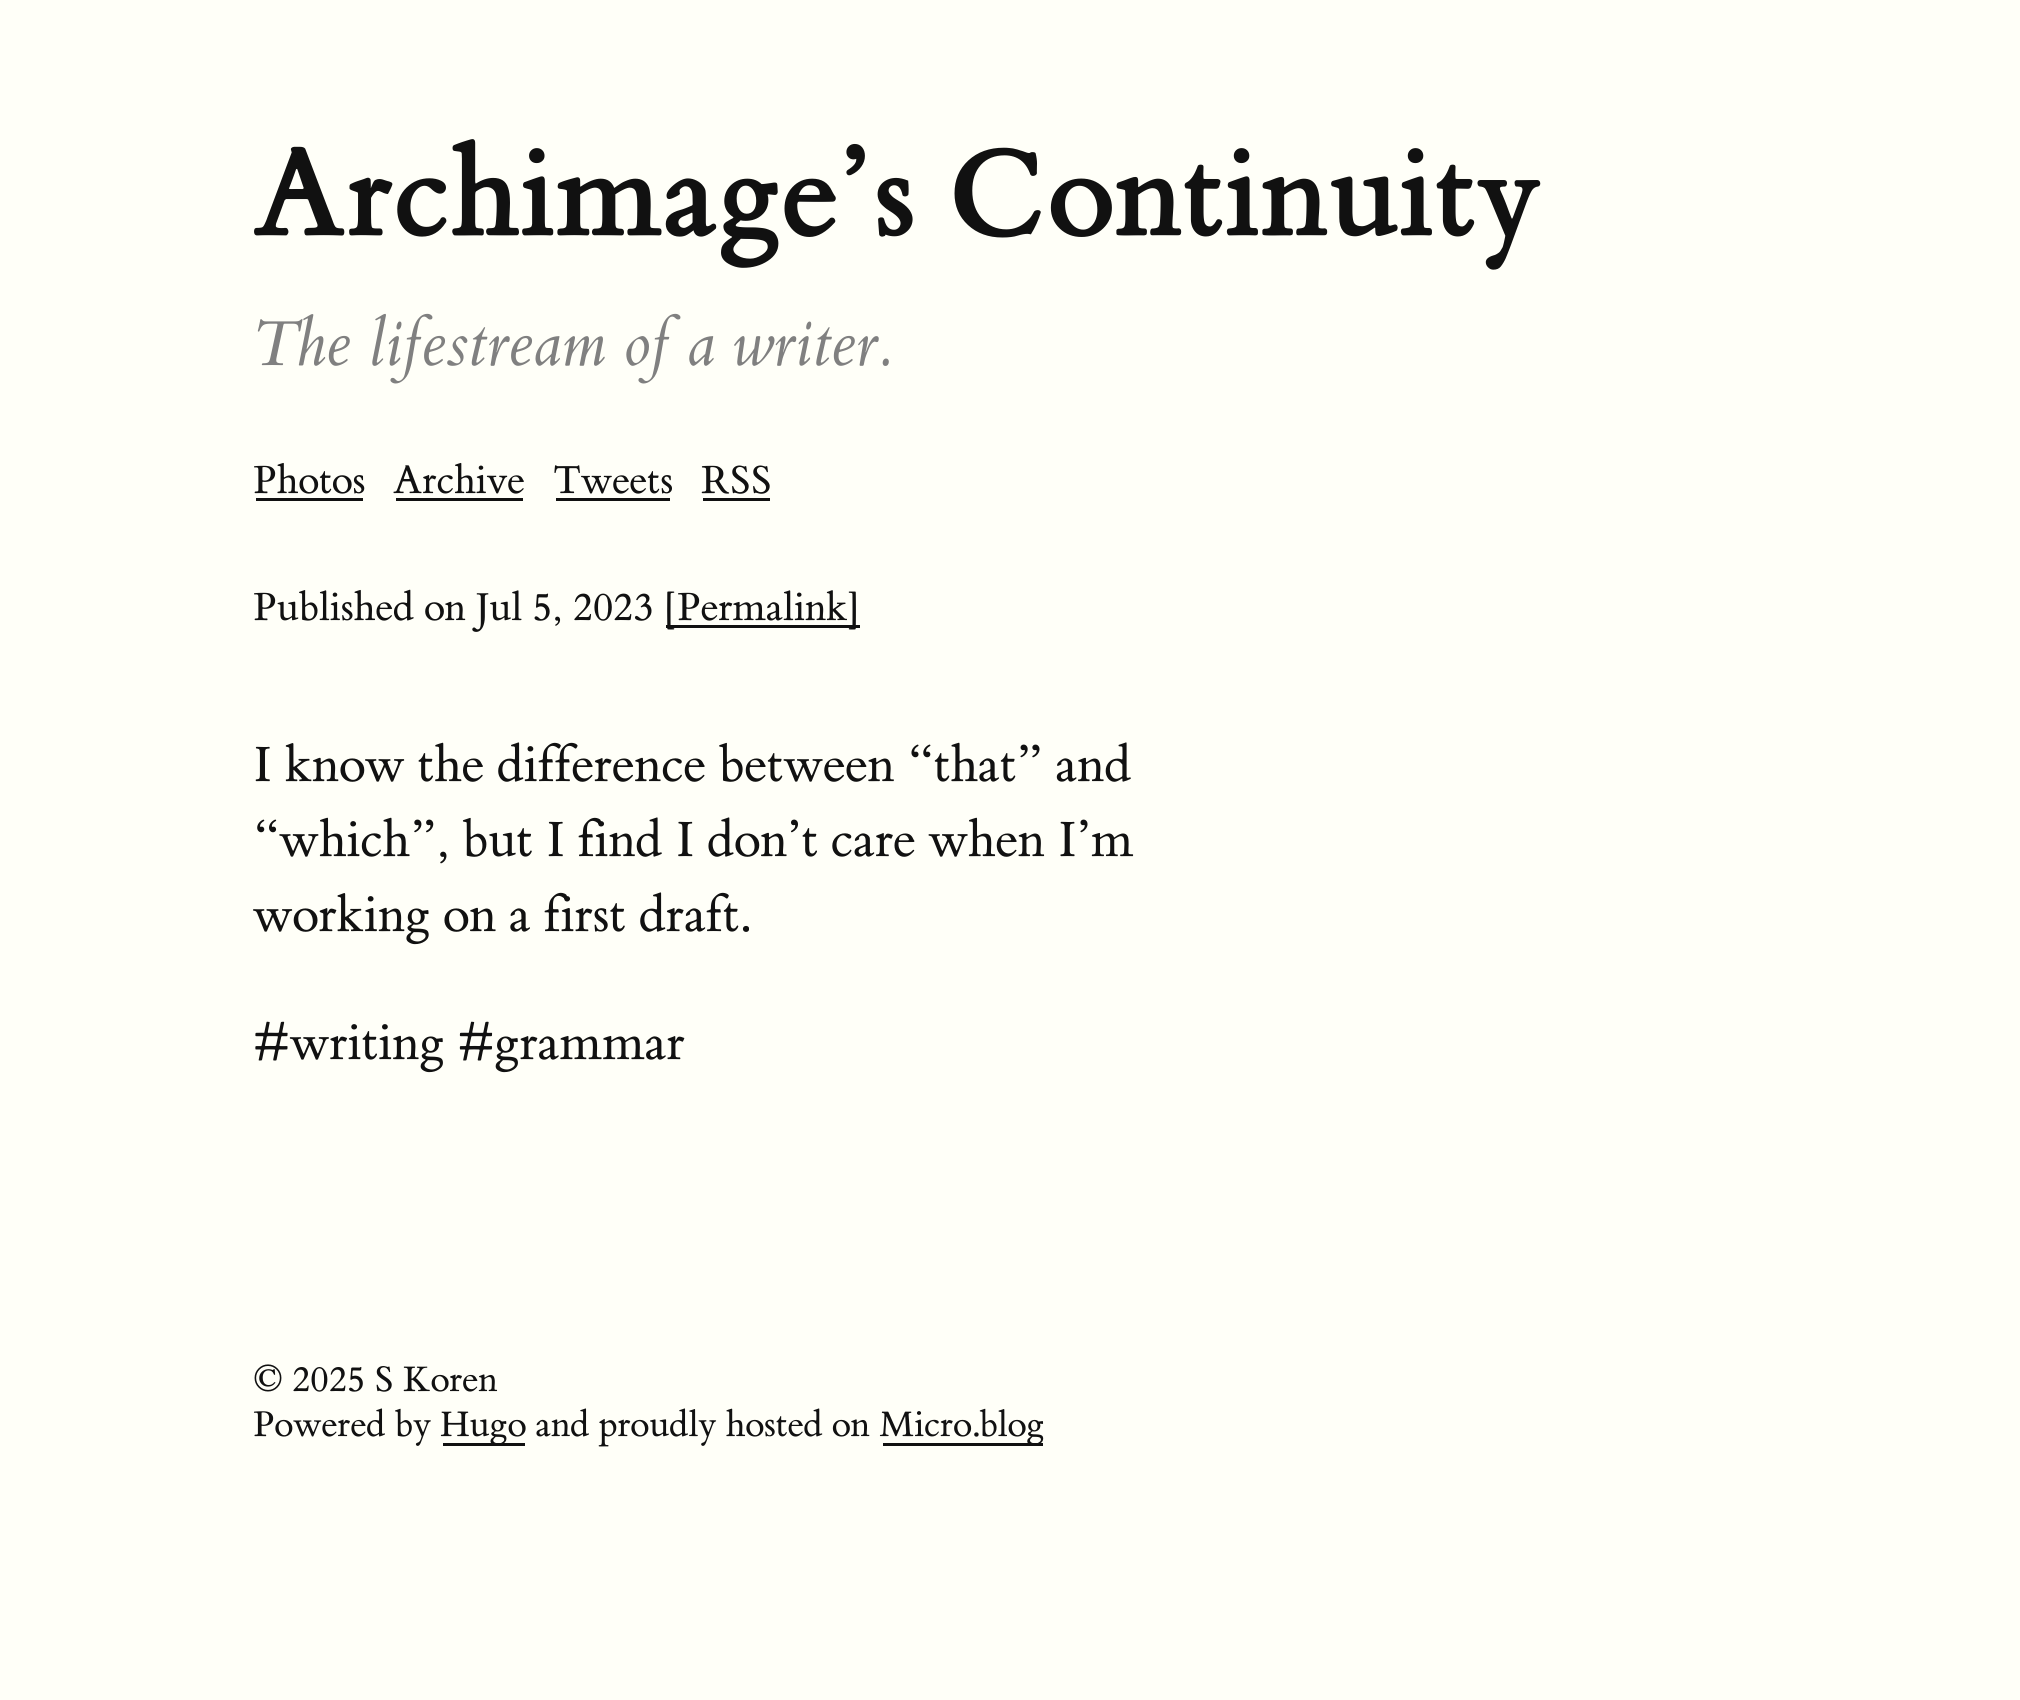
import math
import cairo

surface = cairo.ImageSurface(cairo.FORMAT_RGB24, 2020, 1700)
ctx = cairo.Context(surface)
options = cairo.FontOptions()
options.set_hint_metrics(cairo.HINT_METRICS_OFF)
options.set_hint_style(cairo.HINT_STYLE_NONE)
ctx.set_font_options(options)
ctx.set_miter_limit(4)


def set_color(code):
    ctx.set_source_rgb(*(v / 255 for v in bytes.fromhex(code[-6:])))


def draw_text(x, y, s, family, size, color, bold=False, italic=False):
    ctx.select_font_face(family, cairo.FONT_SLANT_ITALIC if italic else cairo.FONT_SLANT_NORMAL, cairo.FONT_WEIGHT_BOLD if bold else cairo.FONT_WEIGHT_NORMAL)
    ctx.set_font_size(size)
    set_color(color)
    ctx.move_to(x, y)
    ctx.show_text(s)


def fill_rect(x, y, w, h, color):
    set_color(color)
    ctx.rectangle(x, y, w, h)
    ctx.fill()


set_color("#fffff8")
ctx.paint()
draw_text(253, 235, "Archimage’s Continuity", "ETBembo", 131.25, "#111111", bold=True)
draw_text(253, 365, "The lifestream of a writer.", "ETBembo", 67.5, "#808080", italic=True)
draw_text(253, 493, "Photos", "ETBembo", 41.25, "#111111")
fill_rect(253, 498, 112, 3, "#111111")
fill_rect(363, 498, 2, 3, "#fffff8")
fill_rect(253, 498, 3, 3, "#fffff8")
draw_text(393, 493, "Archive", "ETBembo", 41.25, "#111111")
fill_rect(393, 498, 132, 3, "#111111")
fill_rect(523, 498, 2, 3, "#fffff8")
fill_rect(393, 498, 3, 3, "#fffff8")
draw_text(553, 493, "Tweets", "ETBembo", 41.25, "#111111")
fill_rect(553, 498, 120, 3, "#111111")
fill_rect(670, 498, 3, 3, "#fffff8")
fill_rect(553, 498, 3, 3, "#fffff8")
draw_text(701, 493, "RSS", "ETBembo", 41.25, "#111111")
fill_rect(700, 498, 73, 3, "#111111")
fill_rect(770, 498, 3, 3, "#fffff8")
fill_rect(700, 498, 3, 3, "#fffff8")
draw_text(253, 620, "Published on Jul 5, 2023", "ETBembo", 41.25, "#111111")
fill_rect(663, 625, 200, 3, "#111111")
draw_text(663, 620, "[Permalink]", "ETBembo", 41.25, "#111111")
fill_rect(860, 625, 3, 3, "#fffff8")
fill_rect(663, 625, 3, 3, "#fffff8")
draw_text(253, 781, "I know the difference between “that” and", "ETBembo", 52.5, "#111111")
draw_text(253, 856, "“which”, but I find I don’t care when I’m", "ETBembo", 52.5, "#111111")
draw_text(253, 931, "working on a first draft.", "ETBembo", 52.5, "#111111")
draw_text(253, 1059, "#writing #grammar", "ETBembo", 52.5, "#111111")
draw_text(253, 1391, "© 2025 S Koren", "ETBembo", 37.5, "#111111")
draw_text(253, 1436, "Powered by", "ETBembo", 37.5, "#111111")
fill_rect(440, 1443, 88, 3, "#111111")
fill_rect(525, 1443, 3, 3, "#fffff8")
fill_rect(440, 1443, 3, 3, "#fffff8")
draw_text(440, 1436, "Hugo and proudly hosted on", "ETBembo", 37.5, "#111111")
fill_rect(880, 1443, 165, 3, "#111111")
fill_rect(1043, 1443, 2, 3, "#fffff8")
fill_rect(880, 1443, 3, 3, "#fffff8")
draw_text(879, 1436, "Micro.blog", "ETBembo", 37.5, "#111111")
surface.write_to_png("output.png")
